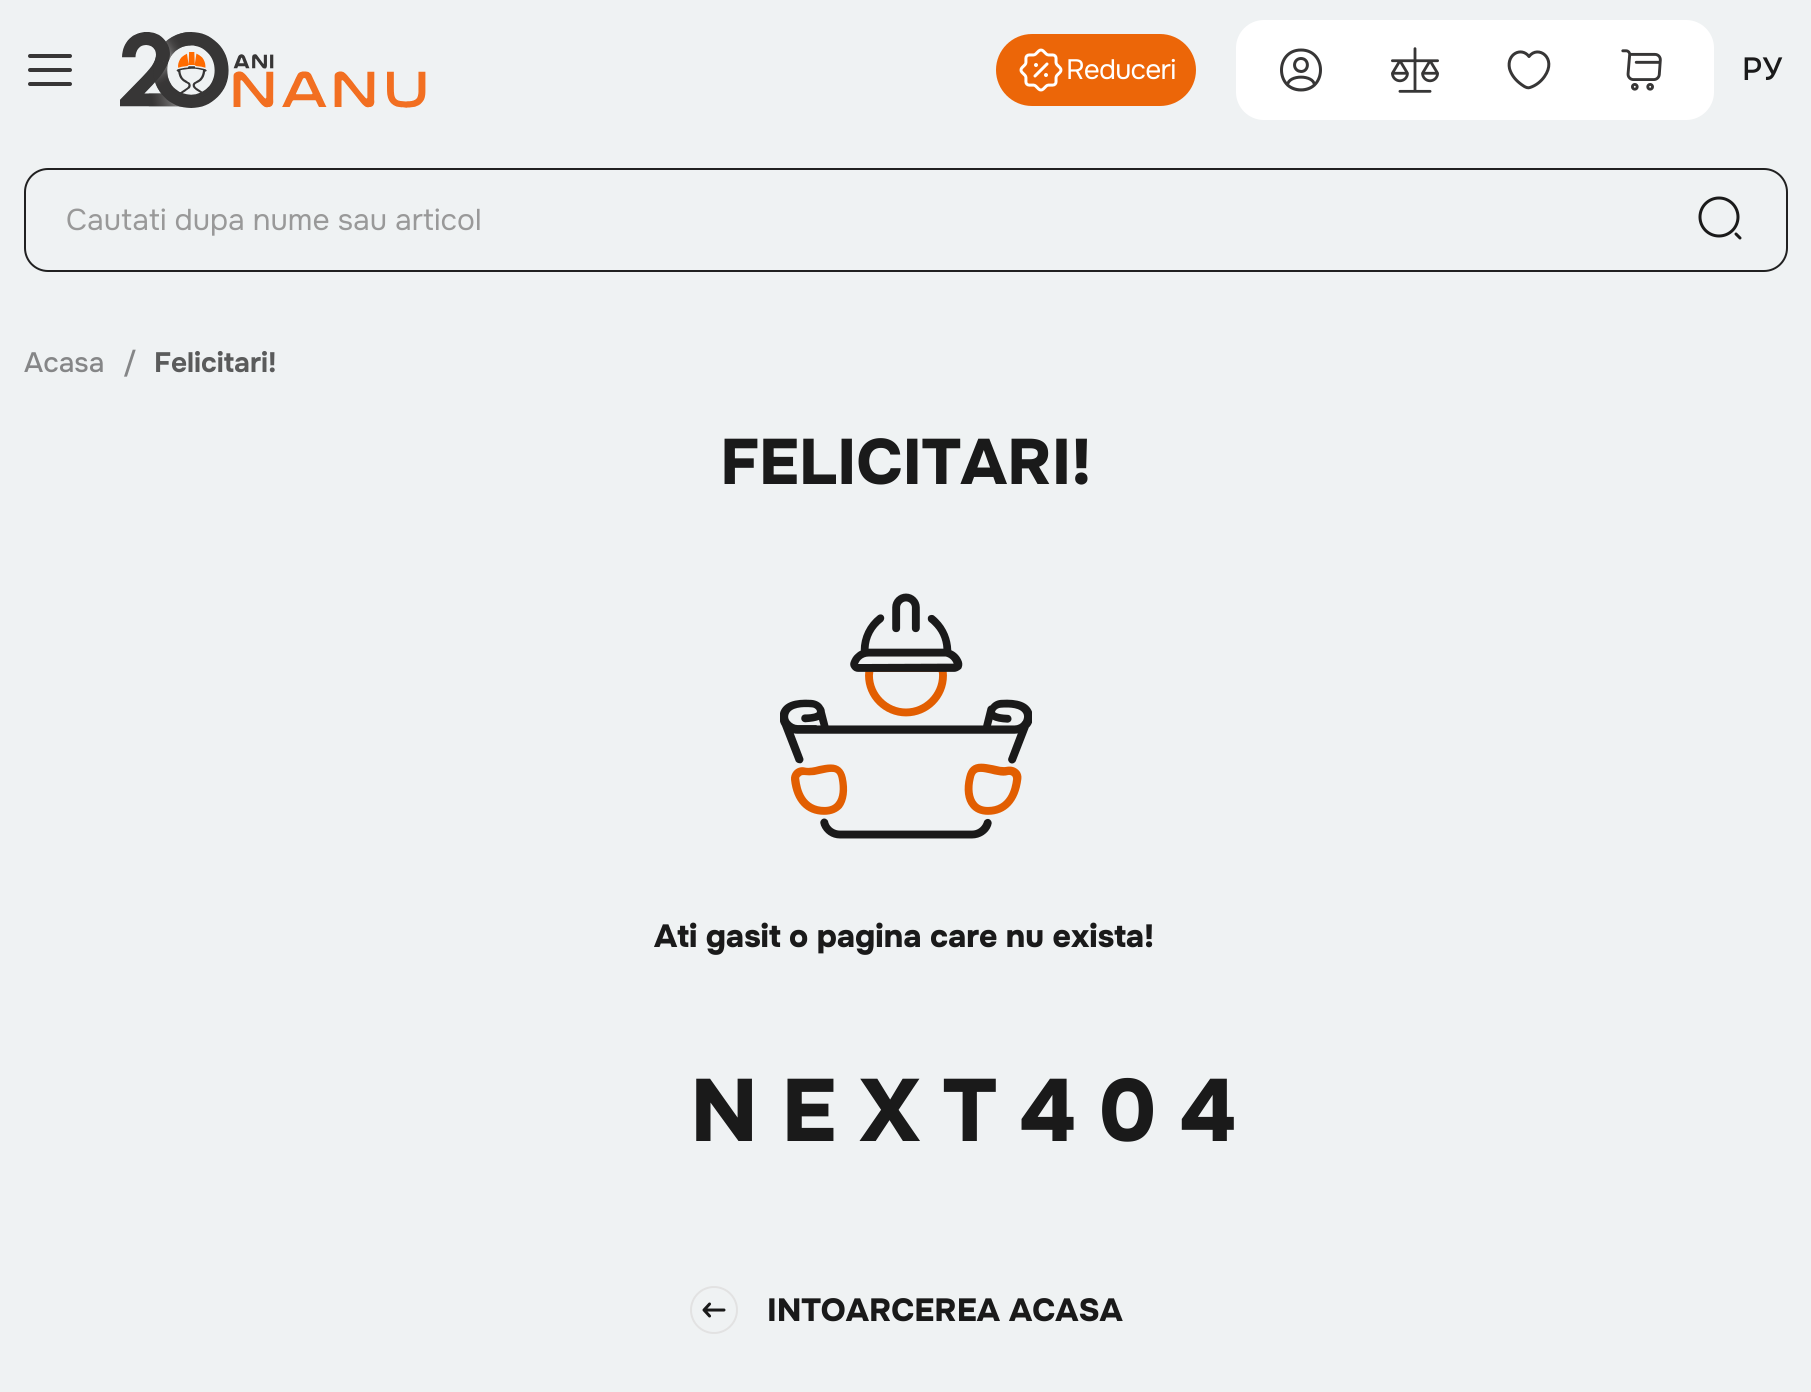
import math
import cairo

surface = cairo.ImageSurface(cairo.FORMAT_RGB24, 1811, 1392)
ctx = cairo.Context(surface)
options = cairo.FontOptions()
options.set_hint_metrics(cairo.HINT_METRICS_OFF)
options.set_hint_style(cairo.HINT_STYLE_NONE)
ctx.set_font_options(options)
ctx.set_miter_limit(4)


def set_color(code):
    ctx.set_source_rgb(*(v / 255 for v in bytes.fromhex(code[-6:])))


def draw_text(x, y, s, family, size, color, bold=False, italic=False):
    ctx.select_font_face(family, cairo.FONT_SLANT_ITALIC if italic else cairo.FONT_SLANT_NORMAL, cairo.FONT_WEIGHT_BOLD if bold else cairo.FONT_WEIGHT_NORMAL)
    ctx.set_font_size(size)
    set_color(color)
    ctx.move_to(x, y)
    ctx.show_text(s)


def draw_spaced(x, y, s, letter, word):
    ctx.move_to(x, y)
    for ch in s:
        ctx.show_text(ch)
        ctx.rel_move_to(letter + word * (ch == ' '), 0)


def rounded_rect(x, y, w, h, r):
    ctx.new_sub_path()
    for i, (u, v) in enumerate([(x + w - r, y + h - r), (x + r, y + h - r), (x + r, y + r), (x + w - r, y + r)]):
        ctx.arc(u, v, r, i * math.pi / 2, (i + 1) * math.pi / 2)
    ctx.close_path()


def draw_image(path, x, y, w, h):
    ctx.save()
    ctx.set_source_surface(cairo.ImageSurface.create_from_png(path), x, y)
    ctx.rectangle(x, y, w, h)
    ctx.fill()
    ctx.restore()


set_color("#eff2f3")
ctx.paint()
ctx.new_path()
ctx.move_to(30, 56)
ctx.line_to(70, 56)
ctx.move_to(30, 70)
ctx.line_to(70, 70)
ctx.move_to(30, 84)
ctx.line_to(70, 84)
set_color("#373636")
ctx.set_line_width(4)
ctx.set_line_cap(cairo.LINE_CAP_ROUND)
ctx.stroke()
draw_image("assets/img1.png", 120, 32, 306, 76)
set_color("#ec6608")
rounded_rect(996, 34, 200, 72, 36)
ctx.fill()
draw_image("assets/img2.png", 1019, 48, 44, 44)
ctx.select_font_face("Onest")
ctx.set_font_size(28)
set_color("#ffffff")
draw_spaced(1066, 79, "Reduceri", -0.75, 0)
rounded_rect(1236, 20, 478, 100, 28)
ctx.fill()
ctx.new_path()
ctx.move_to(1301, 71.5)
ctx.line_to(1298.5, 71)
ctx.curve_to(1292, 68, 1294, 58.5, 1301, 58.5)
ctx.curve_to(1309.5, 58.5, 1309.5, 71.5, 1301, 71.5)
ctx.close_path()
ctx.move_to(1314.5, 85)
ctx.curve_to(1307, 91.5, 1295, 91.5, 1287.5, 85)
ctx.curve_to(1288.5, 74.5, 1313.5, 74.5, 1314.5, 85)
ctx.close_path()
ctx.move_to(1301, 90)
ctx.curve_to(1327, 90, 1327, 50, 1301, 50)
ctx.curve_to(1275, 50, 1275, 90, 1301, 90)
ctx.close_path()
set_color("#373636")
ctx.set_line_width(3)
ctx.set_line_join(cairo.LINE_JOIN_ROUND)
ctx.stroke()
draw_image("assets/img3.png", 1391, 47, 48, 46)
ctx.new_path()
ctx.move_to(1530, 87.5)
ctx.curve_to(1526.5, 89, 1521.5, 84.5, 1519.5, 83)
ctx.curve_to(1514.5, 79, 1511, 74, 1509.5, 68.5)
ctx.curve_to(1506.5, 54, 1521.5, 46.5, 1529, 56.5)
ctx.curve_to(1538, 44.5, 1557.5, 58, 1544.5, 76.5)
ctx.curve_to(1541, 81.5, 1536, 85.5, 1530, 87.5)
ctx.close_path()
ctx.stroke()
draw_image("assets/img4.png", 1621, 49, 41, 42)
draw_text(1742, 80, "РУ", "Onest Medium", 32, "#1a1a1a")
rounded_rect(25, 169, 1762, 102, 23)
set_color("#212121")
ctx.set_line_width(2)
ctx.set_line_cap(cairo.LINE_CAP_BUTT)
ctx.set_line_join(cairo.LINE_JOIN_MITER)
ctx.stroke()
draw_text(66, 230, "Cautati dupa nume sau articol", "Onest", 30, "#999999")
ctx.new_path()
ctx.move_to(1719, 236)
ctx.curve_to(1729.5, 236, 1738, 227.5, 1738, 217)
ctx.curve_to(1738, 206.5, 1729.5, 198, 1719, 198)
ctx.curve_to(1708.5, 198, 1700, 206.5, 1700, 217)
ctx.curve_to(1700, 227.5, 1708.5, 236, 1719, 236)
ctx.close_path()
ctx.move_to(1740, 238)
ctx.line_to(1736, 234)
set_color("#1a1a1a")
ctx.set_line_width(3)
ctx.set_line_cap(cairo.LINE_CAP_ROUND)
ctx.set_line_join(cairo.LINE_JOIN_ROUND)
ctx.stroke()
draw_text(24, 372, "Acasa", "Onest Medium", 28, "#858687")
draw_text(123, 372, "/", "Onest Medium", 28, "#858687")
draw_text(154, 372, "Felicitari!", "Onest", 28, "#5a5b5b", bold=True)
draw_text(720, 484, "FELICITARI!", "Onest ExtraBold", 64, "#1a1a1a")
draw_image("assets/img5.png", 780, 593, 252, 246)
ctx.set_font_size(32)
draw_spaced(654, 947, "Ati gasit o pagina care nu exista!", 0, -0.75)
ctx.set_font_size(88)
draw_spaced(690, 1141, "NEXT404", 23, 0)
draw_image("assets/img6.png", 690, 1286, 48, 48)
draw_text(767, 1321, "INTOARCEREA ACASA", "Onest ExtraBold", 32, "#1a1a1a")
surface.write_to_png("output.png")
